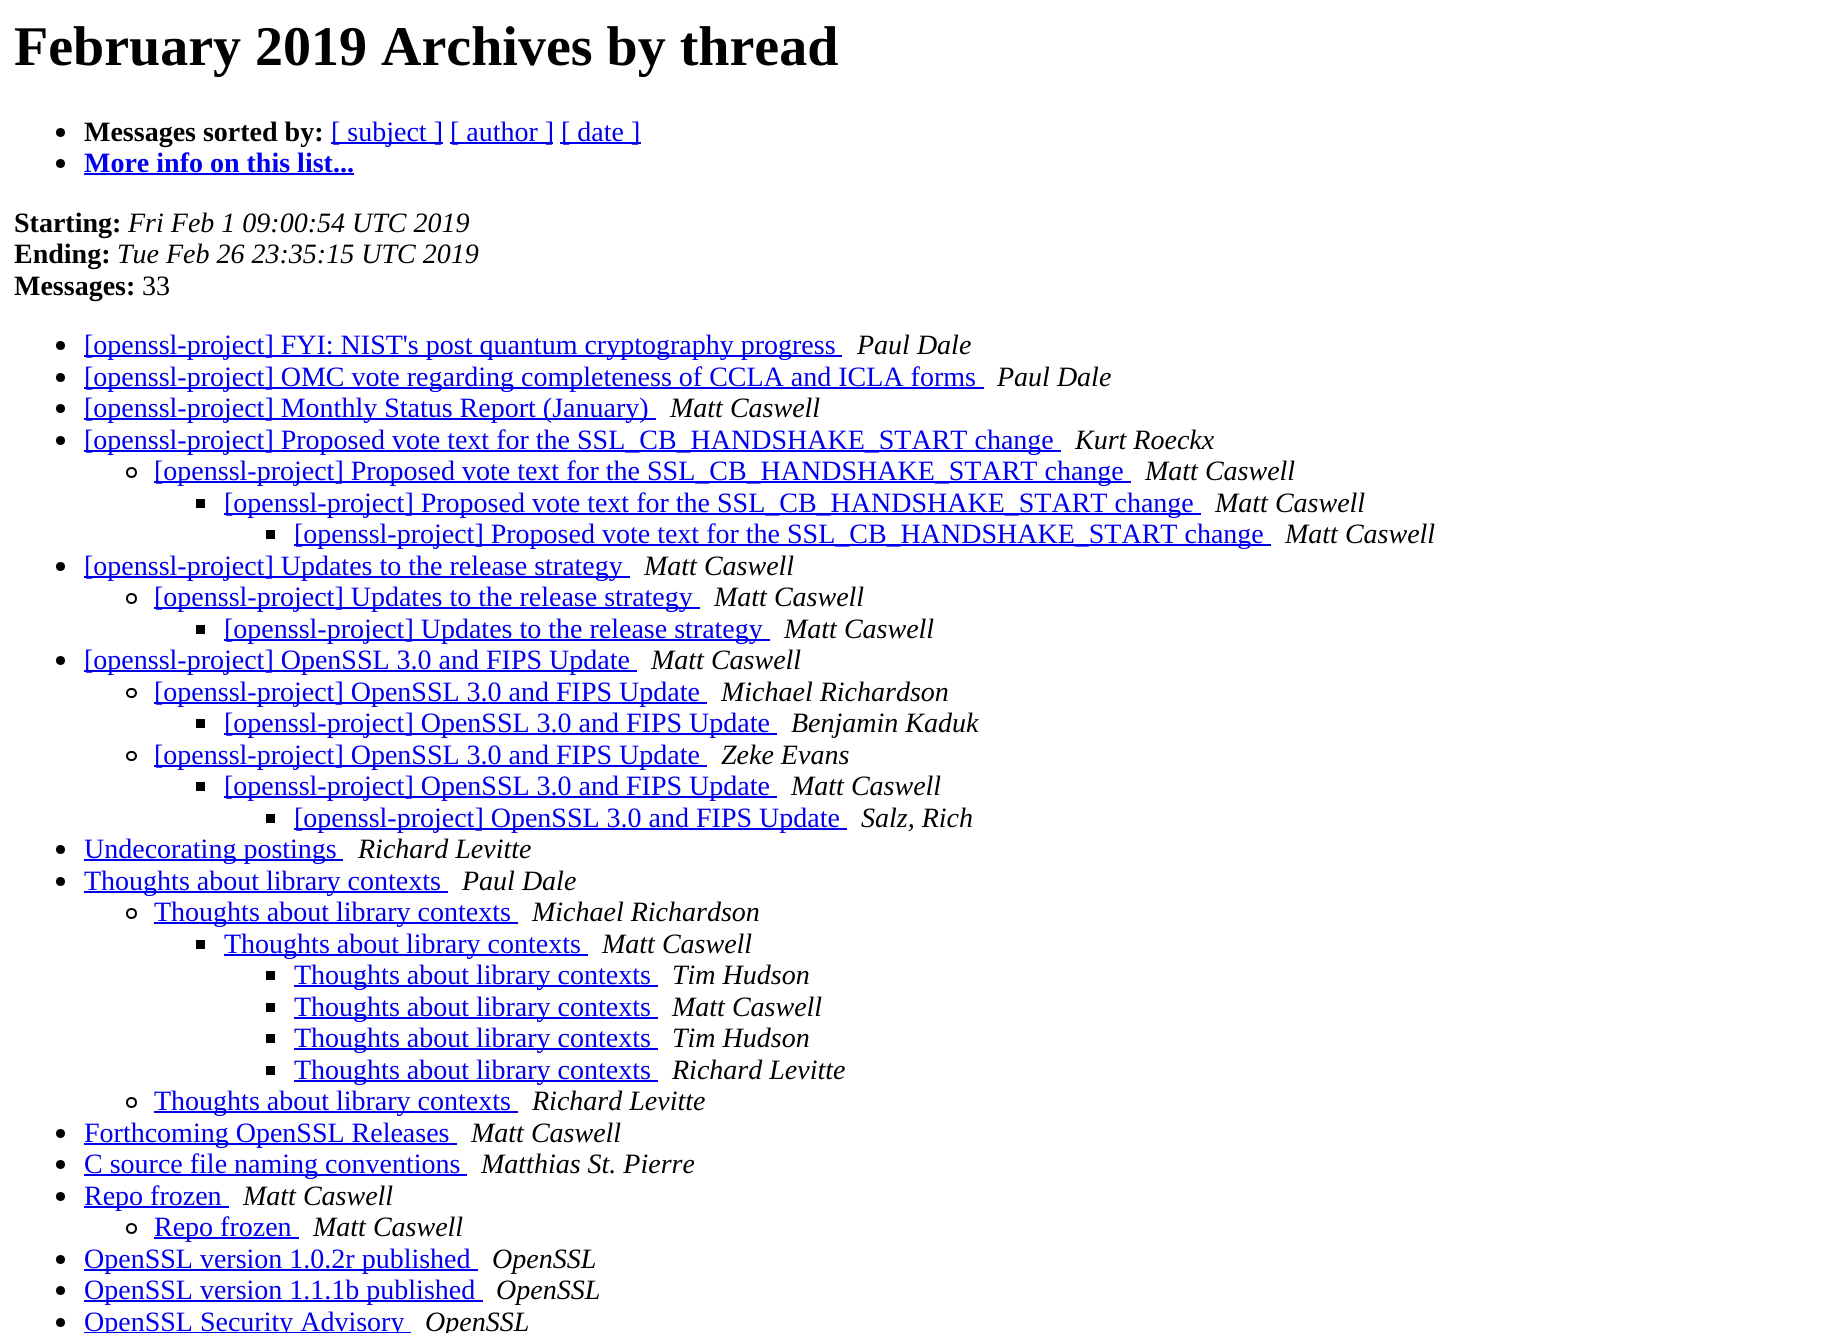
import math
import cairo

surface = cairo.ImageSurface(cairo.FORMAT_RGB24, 1837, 1333)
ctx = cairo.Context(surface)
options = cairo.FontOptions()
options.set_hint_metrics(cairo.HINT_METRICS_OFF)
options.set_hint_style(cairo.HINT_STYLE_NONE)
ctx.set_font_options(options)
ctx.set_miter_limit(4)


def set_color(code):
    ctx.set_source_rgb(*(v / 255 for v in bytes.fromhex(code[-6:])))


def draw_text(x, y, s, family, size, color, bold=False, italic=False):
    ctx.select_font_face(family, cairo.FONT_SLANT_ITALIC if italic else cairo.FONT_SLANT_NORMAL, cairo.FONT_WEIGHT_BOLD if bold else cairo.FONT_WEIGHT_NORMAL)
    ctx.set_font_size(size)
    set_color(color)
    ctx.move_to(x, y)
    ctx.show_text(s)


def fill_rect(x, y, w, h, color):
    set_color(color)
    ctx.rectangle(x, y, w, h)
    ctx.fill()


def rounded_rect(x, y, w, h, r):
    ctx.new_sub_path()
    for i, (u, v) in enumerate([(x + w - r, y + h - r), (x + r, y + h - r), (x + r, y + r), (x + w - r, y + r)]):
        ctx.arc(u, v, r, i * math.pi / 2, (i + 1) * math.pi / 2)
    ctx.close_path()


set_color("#ffffff")
ctx.paint()
draw_text(14, 65, "February 2019 Archives by thread", "Liberation Serif", 56, "#000000", bold=True)
ctx.new_path()
ctx.arc(60.5, 132.5, 4.5, 0, 2 * math.pi)
ctx.fill()
draw_text(84, 141, "Messages sorted by:", "Liberation Serif", 28, "#000000", bold=True)
fill_rect(331, 142, 112, 2, "#0000ee")
draw_text(331, 141, "[ subject ]", "Liberation Serif", 28, "#0000ee")
fill_rect(450, 142, 103, 2, "#0000ee")
draw_text(450, 141, "[ author ]", "Liberation Serif", 28, "#0000ee")
fill_rect(560, 142, 81, 2, "#0000ee")
draw_text(561, 141, "[ date ]", "Liberation Serif", 28, "#0000ee")
set_color("#000000")
ctx.new_path()
ctx.arc(60.5, 163.5, 4.5, 0, 2 * math.pi)
ctx.fill()
draw_text(84, 172, "More info on this list...", "Liberation Serif", 28, "#0000ee", bold=True)
fill_rect(84, 173, 270, 2, "#0000ee")
draw_text(14, 232, "Starting:", "Liberation Serif", 28, "#000000", bold=True)
draw_text(128, 232, "Fri Feb 1 09:00:54 UTC 2019", "Liberation Serif", 28, "#000000", italic=True)
draw_text(14, 263, "Ending:", "Liberation Serif", 28, "#000000", bold=True)
draw_text(117, 263, "Tue Feb 26 23:35:15 UTC 2019", "Liberation Serif", 28, "#000000", italic=True)
draw_text(14, 295, "Messages:", "Liberation Serif", 28, "#000000", bold=True)
draw_text(142, 295, "33", "Liberation Serif", 28, "#000000")
ctx.new_path()
ctx.arc(60.5, 345.5, 4.5, 0, 2 * math.pi)
ctx.fill()
fill_rect(84, 355, 758, 2, "#0000ee")
draw_text(84, 354, "[openssl-project] FYI: NIST's post quantum cryptography progress", "Liberation Serif", 28, "#0000ee")
draw_text(857, 354, "Paul Dale", "Liberation Serif", 28, "#000000", italic=True)
ctx.new_path()
ctx.arc(60.5, 377.5, 4.5, 0, 2 * math.pi)
ctx.fill()
fill_rect(84, 387, 900, 2, "#0000ee")
draw_text(84, 386, "[openssl-project] OMC vote regarding completeness of CCLA and ICLA forms", "Liberation Serif", 28, "#0000ee")
draw_text(997, 386, "Paul Dale", "Liberation Serif", 28, "#000000", italic=True)
ctx.new_path()
ctx.arc(60.5, 408.5, 4.5, 0, 2 * math.pi)
ctx.fill()
fill_rect(84, 418, 572, 2, "#0000ee")
draw_text(84, 417, "[openssl-project] Monthly Status Report (January)", "Liberation Serif", 28, "#0000ee")
draw_text(670, 417, "Matt Caswell", "Liberation Serif", 28, "#000000", italic=True)
ctx.new_path()
ctx.arc(60.5, 440.5, 4.5, 0, 2 * math.pi)
ctx.fill()
fill_rect(84, 450, 977, 2, "#0000ee")
draw_text(84, 449, "[openssl-project] Proposed vote text for the SSL_CB_HANDSHAKE_START change", "Liberation Serif", 28, "#0000ee")
draw_text(1075, 449, "Kurt Roeckx", "Liberation Serif", 28, "#000000", italic=True)
ctx.new_path()
ctx.arc(131.5, 472.5, 4.5, 0, 2 * math.pi)
ctx.stroke()
fill_rect(154, 481, 977, 2, "#0000ee")
draw_text(154, 480, "[openssl-project] Proposed vote text for the SSL_CB_HANDSHAKE_START change", "Liberation Serif", 28, "#0000ee")
draw_text(1145, 480, "Matt Caswell", "Liberation Serif", 28, "#000000", italic=True)
fill_rect(196, 499, 9, 9, "#000000")
fill_rect(224, 513, 977, 2, "#0000ee")
draw_text(224, 512, "[openssl-project] Proposed vote text for the SSL_CB_HANDSHAKE_START change", "Liberation Serif", 28, "#0000ee")
draw_text(1215, 512, "Matt Caswell", "Liberation Serif", 28, "#000000", italic=True)
fill_rect(266, 530, 9, 9, "#000000")
fill_rect(294, 544, 977, 2, "#0000ee")
draw_text(294, 543, "[openssl-project] Proposed vote text for the SSL_CB_HANDSHAKE_START change", "Liberation Serif", 28, "#0000ee")
draw_text(1285, 543, "Matt Caswell", "Liberation Serif", 28, "#000000", italic=True)
ctx.new_path()
ctx.arc(60.5, 566.5, 4.5, 0, 2 * math.pi)
ctx.fill()
fill_rect(84, 576, 546, 2, "#0000ee")
draw_text(84, 575, "[openssl-project] Updates to the release strategy", "Liberation Serif", 28, "#0000ee")
draw_text(644, 575, "Matt Caswell", "Liberation Serif", 28, "#000000", italic=True)
ctx.new_path()
ctx.arc(131.5, 598.5, 4.5, 0, 2 * math.pi)
ctx.stroke()
fill_rect(154, 607, 546, 2, "#0000ee")
draw_text(154, 606, "[openssl-project] Updates to the release strategy", "Liberation Serif", 28, "#0000ee")
draw_text(714, 606, "Matt Caswell", "Liberation Serif", 28, "#000000", italic=True)
fill_rect(196, 625, 9, 9, "#000000")
fill_rect(224, 639, 546, 2, "#0000ee")
draw_text(224, 638, "[openssl-project] Updates to the release strategy", "Liberation Serif", 28, "#0000ee")
draw_text(784, 638, "Matt Caswell", "Liberation Serif", 28, "#000000", italic=True)
ctx.new_path()
ctx.arc(60.5, 660.5, 4.5, 0, 2 * math.pi)
ctx.fill()
fill_rect(84, 670, 553, 2, "#0000ee")
draw_text(84, 669, "[openssl-project] OpenSSL 3.0 and FIPS Update", "Liberation Serif", 28, "#0000ee")
draw_text(651, 669, "Matt Caswell", "Liberation Serif", 28, "#000000", italic=True)
rounded_rect(127, 689, 9, 8, 4)
ctx.stroke()
fill_rect(154, 702, 553, 2, "#0000ee")
draw_text(154, 701, "[openssl-project] OpenSSL 3.0 and FIPS Update", "Liberation Serif", 28, "#0000ee")
draw_text(721, 701, "Michael Richardson", "Liberation Serif", 28, "#000000", italic=True)
fill_rect(196, 719, 9, 9, "#000000")
fill_rect(224, 733, 553, 2, "#0000ee")
draw_text(224, 732, "[openssl-project] OpenSSL 3.0 and FIPS Update", "Liberation Serif", 28, "#0000ee")
draw_text(791, 732, "Benjamin Kaduk", "Liberation Serif", 28, "#000000", italic=True)
rounded_rect(127, 752, 9, 8, 4)
ctx.stroke()
fill_rect(154, 765, 553, 2, "#0000ee")
draw_text(154, 764, "[openssl-project] OpenSSL 3.0 and FIPS Update", "Liberation Serif", 28, "#0000ee")
draw_text(721, 764, "Zeke Evans", "Liberation Serif", 28, "#000000", italic=True)
fill_rect(196, 782, 9, 9, "#000000")
fill_rect(224, 796, 553, 2, "#0000ee")
draw_text(224, 795, "[openssl-project] OpenSSL 3.0 and FIPS Update", "Liberation Serif", 28, "#0000ee")
draw_text(791, 795, "Matt Caswell", "Liberation Serif", 28, "#000000", italic=True)
fill_rect(266, 814, 9, 9, "#000000")
fill_rect(294, 828, 553, 2, "#0000ee")
draw_text(294, 827, "[openssl-project] OpenSSL 3.0 and FIPS Update", "Liberation Serif", 28, "#0000ee")
draw_text(861, 827, "Salz, Rich", "Liberation Serif", 28, "#000000", italic=True)
ctx.new_path()
ctx.arc(60.5, 849.5, 4.5, 0, 2 * math.pi)
ctx.fill()
fill_rect(84, 859, 259, 2, "#0000ee")
draw_text(84, 858, "Undecorating postings", "Liberation Serif", 28, "#0000ee")
draw_text(358, 858, "Richard Levitte", "Liberation Serif", 28, "#000000", italic=True)
ctx.new_path()
ctx.arc(60.5, 881.5, 4.5, 0, 2 * math.pi)
ctx.fill()
fill_rect(84, 891, 364, 2, "#0000ee")
draw_text(84, 890, "Thoughts about library contexts", "Liberation Serif", 28, "#0000ee")
draw_text(462, 890, "Paul Dale", "Liberation Serif", 28, "#000000", italic=True)
ctx.new_path()
ctx.arc(131.5, 913.5, 4.5, 0, 2 * math.pi)
ctx.stroke()
fill_rect(154, 922, 364, 2, "#0000ee")
draw_text(154, 921, "Thoughts about library contexts", "Liberation Serif", 28, "#0000ee")
draw_text(532, 921, "Michael Richardson", "Liberation Serif", 28, "#000000", italic=True)
fill_rect(196, 940, 9, 9, "#000000")
fill_rect(224, 954, 364, 2, "#0000ee")
draw_text(224, 953, "Thoughts about library contexts", "Liberation Serif", 28, "#0000ee")
draw_text(602, 953, "Matt Caswell", "Liberation Serif", 28, "#000000", italic=True)
fill_rect(266, 971, 9, 9, "#000000")
fill_rect(294, 985, 364, 2, "#0000ee")
draw_text(294, 984, "Thoughts about library contexts", "Liberation Serif", 28, "#0000ee")
draw_text(672, 984, "Tim Hudson", "Liberation Serif", 28, "#000000", italic=True)
fill_rect(266, 1003, 9, 9, "#000000")
fill_rect(294, 1017, 364, 2, "#0000ee")
draw_text(294, 1016, "Thoughts about library contexts", "Liberation Serif", 28, "#0000ee")
draw_text(672, 1016, "Matt Caswell", "Liberation Serif", 28, "#000000", italic=True)
fill_rect(266, 1034, 9, 9, "#000000")
fill_rect(294, 1048, 364, 2, "#0000ee")
draw_text(294, 1047, "Thoughts about library contexts", "Liberation Serif", 28, "#0000ee")
draw_text(672, 1047, "Tim Hudson", "Liberation Serif", 28, "#000000", italic=True)
fill_rect(266, 1066, 9, 9, "#000000")
fill_rect(294, 1080, 364, 2, "#0000ee")
draw_text(294, 1079, "Thoughts about library contexts", "Liberation Serif", 28, "#0000ee")
draw_text(672, 1079, "Richard Levitte", "Liberation Serif", 28, "#000000", italic=True)
ctx.new_path()
ctx.arc(131.5, 1102.5, 4.5, 0, 2 * math.pi)
ctx.stroke()
fill_rect(154, 1111, 364, 2, "#0000ee")
draw_text(154, 1110, "Thoughts about library contexts", "Liberation Serif", 28, "#0000ee")
draw_text(532, 1110, "Richard Levitte", "Liberation Serif", 28, "#000000", italic=True)
ctx.new_path()
ctx.arc(60.5, 1133.5, 4.5, 0, 2 * math.pi)
ctx.fill()
fill_rect(84, 1143, 373, 2, "#0000ee")
draw_text(84, 1142, "Forthcoming OpenSSL Releases", "Liberation Serif", 28, "#0000ee")
draw_text(471, 1142, "Matt Caswell", "Liberation Serif", 28, "#000000", italic=True)
ctx.new_path()
ctx.arc(60.5, 1164.5, 4.5, 0, 2 * math.pi)
ctx.fill()
fill_rect(84, 1174, 383, 2, "#0000ee")
draw_text(84, 1173, "C source file naming conventions", "Liberation Serif", 28, "#0000ee")
draw_text(481, 1173, "Matthias St. Pierre", "Liberation Serif", 28, "#000000", italic=True)
ctx.new_path()
ctx.arc(60.5, 1196.5, 4.5, 0, 2 * math.pi)
ctx.fill()
fill_rect(84, 1206, 145, 2, "#0000ee")
draw_text(84, 1205, "Repo frozen", "Liberation Serif", 28, "#0000ee")
draw_text(243, 1205, "Matt Caswell", "Liberation Serif", 28, "#000000", italic=True)
ctx.new_path()
ctx.arc(131.5, 1228.5, 4.5, 0, 2 * math.pi)
ctx.stroke()
fill_rect(154, 1237, 145, 2, "#0000ee")
draw_text(154, 1236, "Repo frozen", "Liberation Serif", 28, "#0000ee")
draw_text(313, 1236, "Matt Caswell", "Liberation Serif", 28, "#000000", italic=True)
ctx.new_path()
ctx.arc(60.5, 1259.5, 4.5, 0, 2 * math.pi)
ctx.fill()
fill_rect(84, 1269, 394, 2, "#0000ee")
draw_text(84, 1268, "OpenSSL version 1.0.2r published", "Liberation Serif", 28, "#0000ee")
draw_text(492, 1268, "OpenSSL", "Liberation Serif", 28, "#000000", italic=True)
ctx.new_path()
ctx.arc(60.5, 1290.5, 4.5, 0, 2 * math.pi)
ctx.fill()
fill_rect(84, 1300, 399, 2, "#0000ee")
draw_text(84, 1299, "OpenSSL version 1.1.1b published", "Liberation Serif", 28, "#0000ee")
draw_text(496, 1299, "OpenSSL", "Liberation Serif", 28, "#000000", italic=True)
ctx.new_path()
ctx.arc(60.5, 1322.5, 4.5, 0, 2 * math.pi)
ctx.fill()
fill_rect(84, 1332, 327, 1, "#0000ee")
draw_text(84, 1331, "OpenSSL Security Advisory", "Liberation Serif", 28, "#0000ee")
draw_text(425, 1331, "OpenSSL", "Liberation Serif", 28, "#000000", italic=True)
surface.write_to_png("output.png")
